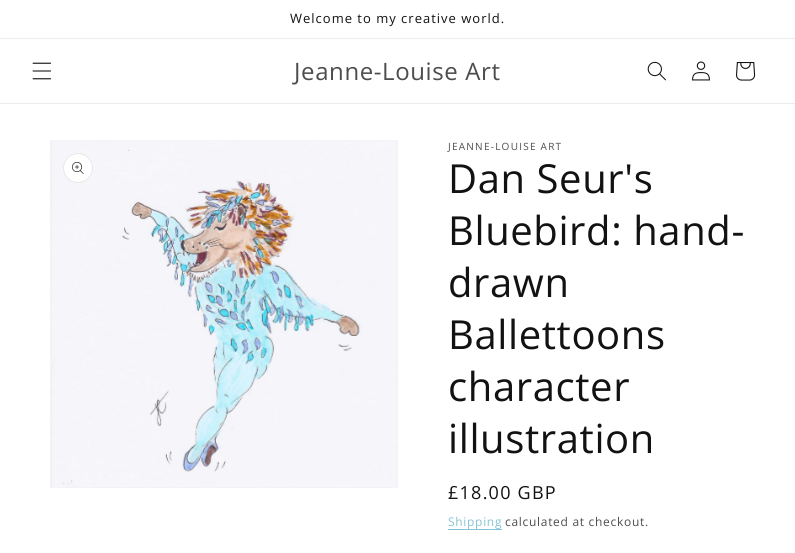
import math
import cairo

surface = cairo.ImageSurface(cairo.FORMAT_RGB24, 795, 553)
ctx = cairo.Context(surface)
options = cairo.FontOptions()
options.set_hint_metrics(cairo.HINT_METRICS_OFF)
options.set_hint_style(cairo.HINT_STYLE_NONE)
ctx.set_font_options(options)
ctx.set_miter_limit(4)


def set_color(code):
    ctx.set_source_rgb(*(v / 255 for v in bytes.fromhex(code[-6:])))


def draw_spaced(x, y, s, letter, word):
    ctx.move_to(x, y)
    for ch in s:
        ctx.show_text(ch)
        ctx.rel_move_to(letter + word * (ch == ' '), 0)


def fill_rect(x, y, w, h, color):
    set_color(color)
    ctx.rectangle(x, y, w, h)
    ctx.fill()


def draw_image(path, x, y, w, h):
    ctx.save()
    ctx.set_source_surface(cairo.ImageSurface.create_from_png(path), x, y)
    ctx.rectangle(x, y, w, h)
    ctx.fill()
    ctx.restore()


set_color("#ffffff")
ctx.paint()
fill_rect(0, 38, 795, 1, "#ececec")
ctx.select_font_face("Open Sans")
ctx.set_font_size(13)
set_color("#121212")
draw_spaced(290, 23, "Welcome to my creative world.", 1, 0)
fill_rect(0, 103, 795, 1, "#ececec")
draw_image("assets/img1.png", 32, 62, 20, 18)
ctx.set_font_size(24)
set_color("#4d4d4d")
draw_spaced(294, 80, "Jeanne-Louise Art", 0.6, 0)
draw_image("assets/img2.png", 647, 61, 19, 20)
draw_image("assets/img3.png", 692, 61, 18, 20)
draw_image("assets/img4.png", 736, 62, 20, 19)
ctx.rectangle(50.5, 140.5, 347, 347)
set_color("#f3f3f3")
ctx.set_line_width(1)
ctx.stroke()
draw_image("assets/img5.png", 51, 141, 346, 346)
set_color("#ffffff")
ctx.arc(78, 168, 15, 0, 2 * math.pi)
ctx.fill()
ctx.arc(78, 168, 14.5, 0, 2 * math.pi)
ctx.set_source_rgba(0.071, 0.071, 0.071, 0.1)
ctx.stroke()
draw_image("assets/img6.png", 72, 162, 12, 12)
ctx.set_font_size(10)
set_color("#4d4d4d")
draw_spaced(448, 150, "JEANNE-LOUISE ART", 1.25, 0)
ctx.set_font_size(40)
set_color("#121212")
draw_spaced(448, 193, "Dan Seur's", 0.6, 0)
draw_spaced(448, 245, "Bluebird: hand-", 0.6, 0)
draw_spaced(448, 297, "drawn", 0.6, 0)
draw_spaced(448, 349, "Ballettoons", 0.6, 0)
draw_spaced(448, 401, "character", 0.6, 0)
draw_spaced(448, 453, "illustration", 0.6, 0)
ctx.set_font_size(18)
draw_spaced(448, 499, "£18.00 GBP", 1.25, 0)
ctx.set_font_size(12)
set_color("#86c3d4")
draw_spaced(448, 526, "Shipping", 0.7, 0)
fill_rect(448, 529, 54, 1, "#86c3d4")
set_color("#4d4d4d")
draw_spaced(505, 526, "calculated at checkout.", 0.7, 0)
surface.write_to_png("output.png")
